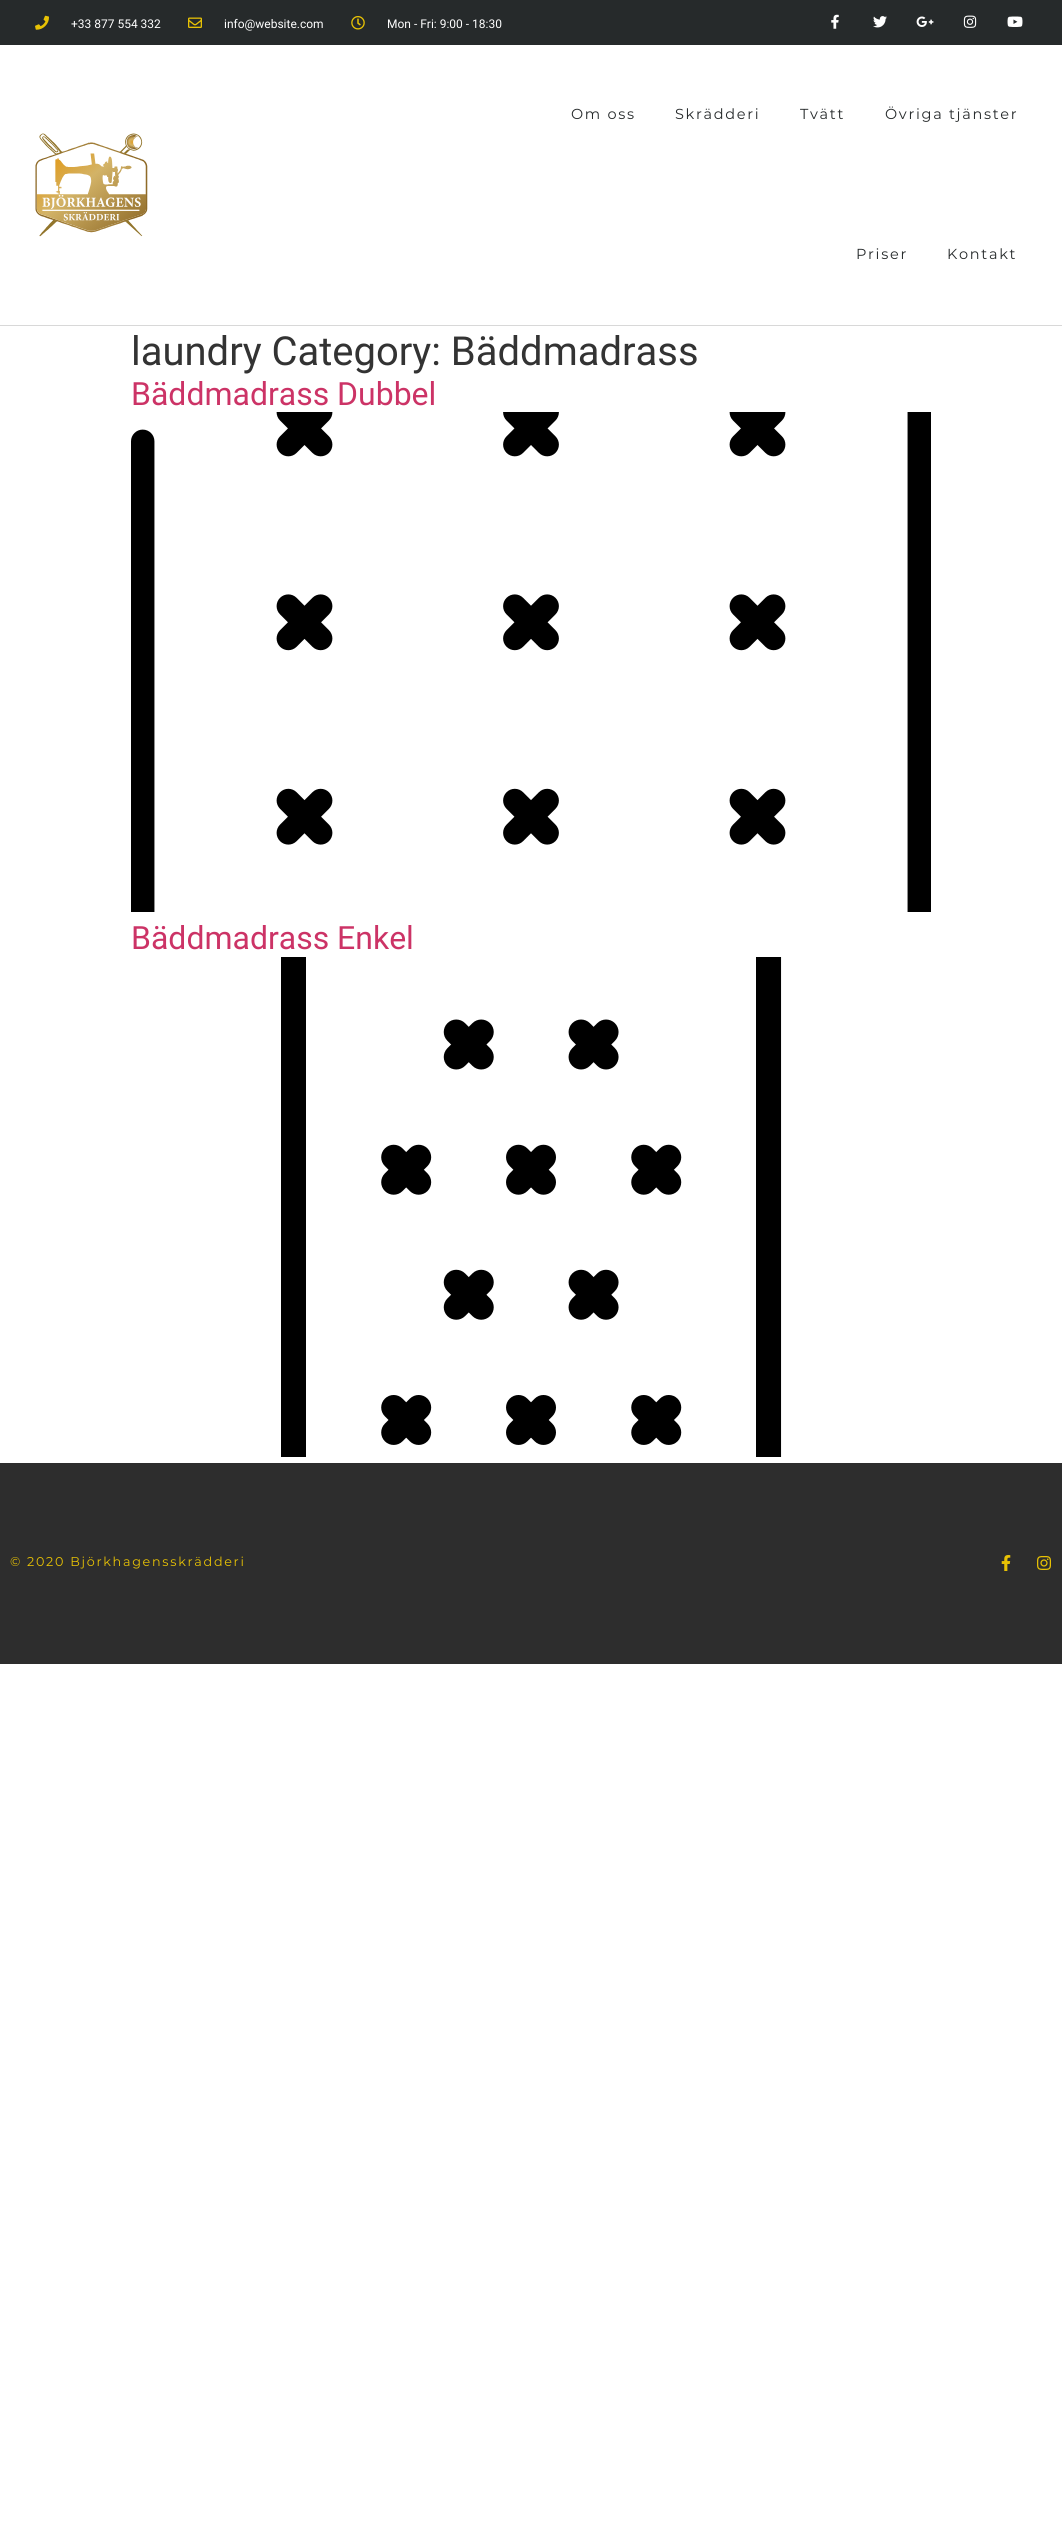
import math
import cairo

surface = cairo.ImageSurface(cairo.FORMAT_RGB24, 1062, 2523)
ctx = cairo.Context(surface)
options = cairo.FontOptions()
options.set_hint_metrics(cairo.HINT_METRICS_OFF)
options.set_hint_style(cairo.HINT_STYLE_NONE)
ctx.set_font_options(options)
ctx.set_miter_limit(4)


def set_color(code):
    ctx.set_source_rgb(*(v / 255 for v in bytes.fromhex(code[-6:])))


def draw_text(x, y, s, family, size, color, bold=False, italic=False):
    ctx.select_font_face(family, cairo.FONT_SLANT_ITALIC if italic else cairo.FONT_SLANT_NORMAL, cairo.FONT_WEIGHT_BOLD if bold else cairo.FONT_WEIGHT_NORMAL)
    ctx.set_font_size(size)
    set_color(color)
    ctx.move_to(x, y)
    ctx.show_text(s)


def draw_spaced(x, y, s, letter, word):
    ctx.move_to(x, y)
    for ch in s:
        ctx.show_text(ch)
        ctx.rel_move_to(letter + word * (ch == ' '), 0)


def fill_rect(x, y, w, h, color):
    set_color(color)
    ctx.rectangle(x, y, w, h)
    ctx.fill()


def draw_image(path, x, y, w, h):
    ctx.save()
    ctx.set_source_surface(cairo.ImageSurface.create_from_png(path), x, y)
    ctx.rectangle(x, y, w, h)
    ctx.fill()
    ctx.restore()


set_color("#ffffff")
ctx.paint()
fill_rect(0, 0, 1062, 45, "#262a2b")
draw_image("assets/img1.png", 35, 15, 14, 15)
draw_text(71, 28, "+33 877 554 332", "Roboto", 12, "#ffffff")
draw_image("assets/img2.png", 188, 17, 14, 11)
draw_text(224, 28, "info@website.com", "Roboto", 12, "#ffffff")
draw_image("assets/img3.png", 351, 16, 14, 14)
draw_text(387, 28, "Mon - Fri: 9:00 - 18:30", "Roboto", 12, "#ffffff")
draw_image("assets/img4.png", 831, 14, 8, 15)
draw_image("assets/img5.png", 873, 16, 14, 12)
draw_image("assets/img6.png", 916, 16, 18, 11)
draw_image("assets/img7.png", 963, 15, 14, 13)
draw_image("assets/img8.png", 1007, 16, 16, 11)
fill_rect(0, 325, 1062, 1, "#d8d8d8")
draw_image("assets/img9.png", 35, 133, 113, 104)
ctx.select_font_face("Montserrat")
ctx.set_font_size(14.5)
set_color("#262a2b")
draw_spaced(571, 119, "Om oss", 1.7, 0)
draw_spaced(675, 119, "Skrädderi", 1.7, 0)
draw_spaced(800, 119, "Tvätt", 1.7, 0)
draw_spaced(885, 119, "Övriga tjänster", 1.7, 0)
draw_spaced(856, 259, "Priser", 1.7, 0)
draw_spaced(947, 259, "Kontakt", 1.7, 0)
draw_text(131, 365, "laundry Category: Bäddmadrass", "Roboto", 40, "#333333")
draw_text(131, 405, "Bäddmadrass Dubbel", "Roboto", 32, "#cc3366")
draw_image("assets/img10.png", 131, 412, 800, 500)
draw_text(131, 949, "Bäddmadrass Enkel", "Roboto", 32, "#cc3366")
draw_image("assets/img11.png", 281, 957, 501, 500)
fill_rect(0, 1463, 1062, 201, "#2d2d2d")
ctx.select_font_face("Montserrat")
ctx.set_font_size(12.75)
set_color("#e8c204")
draw_spaced(10, 1566, "© 2020 Björkhagensskrädderi", 1.7, 0)
draw_image("assets/img12.png", 1001, 1555, 10, 16)
draw_image("assets/img13.png", 1037, 1556, 14, 14)
surface.write_to_png("output.png")
